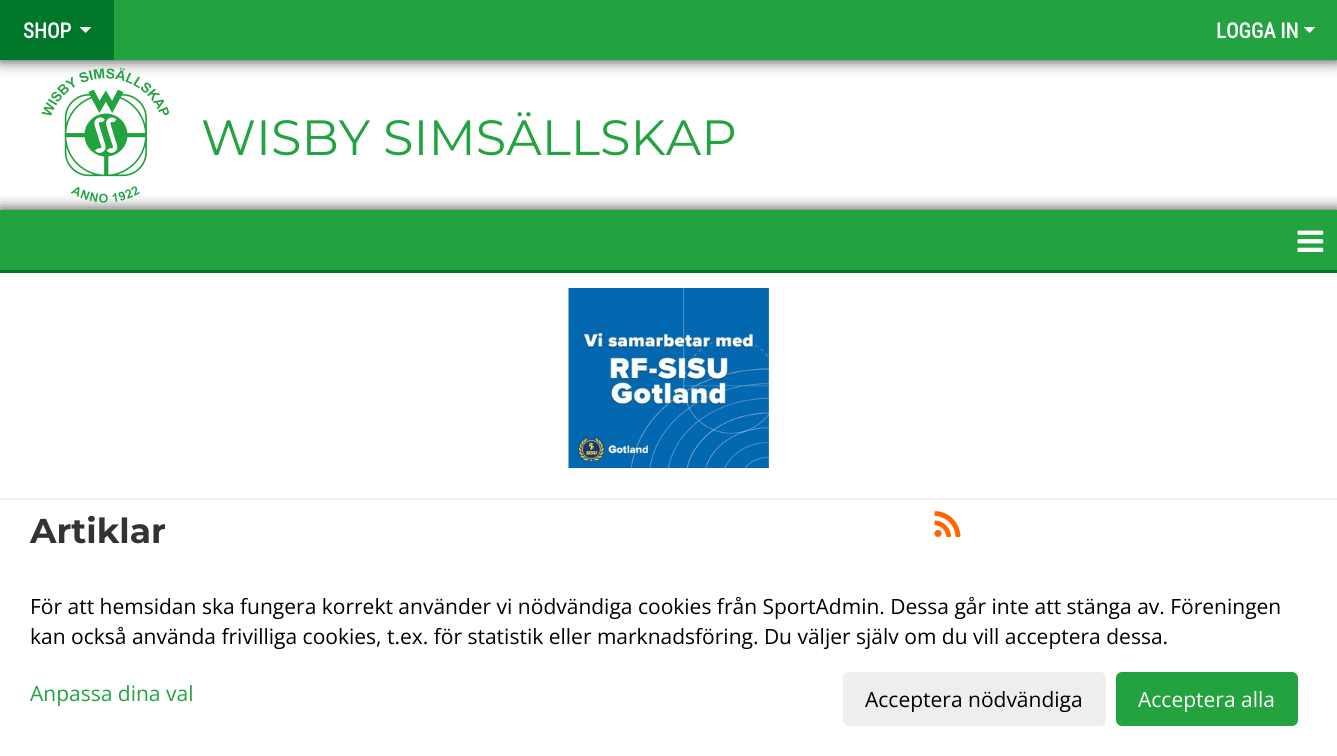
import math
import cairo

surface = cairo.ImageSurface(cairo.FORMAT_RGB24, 1337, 756)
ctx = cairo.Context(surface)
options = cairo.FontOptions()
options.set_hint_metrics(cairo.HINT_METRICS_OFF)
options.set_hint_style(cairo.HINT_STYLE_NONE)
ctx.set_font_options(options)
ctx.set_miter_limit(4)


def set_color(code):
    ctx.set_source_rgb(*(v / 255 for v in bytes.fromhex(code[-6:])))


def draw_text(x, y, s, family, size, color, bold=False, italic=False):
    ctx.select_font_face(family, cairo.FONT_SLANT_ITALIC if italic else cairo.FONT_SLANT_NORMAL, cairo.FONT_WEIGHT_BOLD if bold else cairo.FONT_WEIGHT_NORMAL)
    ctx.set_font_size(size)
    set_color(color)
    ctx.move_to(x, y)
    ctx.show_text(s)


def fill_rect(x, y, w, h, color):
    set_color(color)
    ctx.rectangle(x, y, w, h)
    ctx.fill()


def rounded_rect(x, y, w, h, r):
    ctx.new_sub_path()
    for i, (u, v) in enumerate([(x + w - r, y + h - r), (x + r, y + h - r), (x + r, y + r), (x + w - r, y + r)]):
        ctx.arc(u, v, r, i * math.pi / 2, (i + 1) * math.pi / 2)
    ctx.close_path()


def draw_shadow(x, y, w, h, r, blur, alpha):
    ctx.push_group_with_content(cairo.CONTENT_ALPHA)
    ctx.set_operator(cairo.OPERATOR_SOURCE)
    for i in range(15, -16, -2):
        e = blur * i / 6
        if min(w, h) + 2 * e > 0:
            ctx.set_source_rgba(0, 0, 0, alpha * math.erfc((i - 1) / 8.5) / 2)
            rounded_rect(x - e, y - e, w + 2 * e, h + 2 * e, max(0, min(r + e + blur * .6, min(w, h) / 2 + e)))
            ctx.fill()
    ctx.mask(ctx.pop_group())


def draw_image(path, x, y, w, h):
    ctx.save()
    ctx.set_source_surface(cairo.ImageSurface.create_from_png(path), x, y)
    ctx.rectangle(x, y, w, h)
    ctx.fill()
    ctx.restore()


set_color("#ffffff")
ctx.paint()
set_color("#333333")
draw_shadow(0, 0, 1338, 60, 0, 7.5, 1)
fill_rect(114, 0, 1223, 60, "#23a33f")
fill_rect(0, 0, 114, 60, "#007728")
draw_text(23, 38, "SHOP", "Roboto Condensed", 21, "#ffffff", bold=True)
ctx.new_path()
ctx.move_to(79.5, 27)
ctx.line_to(91.5, 27)
ctx.line_to(85.5, 33)
ctx.close_path()
ctx.fill()
draw_text(1216, 38, "LOGGA IN", "Roboto Condensed", 21, "#ffffff", bold=True)
ctx.new_path()
ctx.move_to(1303.5, 27)
ctx.line_to(1315.5, 27)
ctx.line_to(1309.5, 33)
ctx.close_path()
ctx.fill()
ctx.save()
ctx.rectangle(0, 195, 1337, 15)
ctx.clip()
set_color("#333333")
draw_shadow(0, 210, 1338, 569, 0, 7.5, 1)
ctx.restore()
draw_image("assets/img1.png", 41, 67, 128, 136)
draw_text(201, 155, "WISBY SIMSÄLLSKAP", "Montserrat", 49.5, "#23a33f")
fill_rect(0, 210, 1337, 60, "#23a33f")
fill_rect(0, 270, 1337, 3, "#007728")
draw_image("assets/img2.png", 1297, 230, 27, 22)
draw_image("assets/img3.png", 568, 288, 202, 180)
fill_rect(0, 498, 1337, 2, "#eeeeee")
draw_text(30, 543, "Artiklar", "Montserrat", 34.5, "#333333", bold=True)
draw_image("assets/img4.png", 934, 511, 27, 26)
draw_text(30, 614, "För att hemsidan ska fungera korrekt använder vi nödvändiga cookies från SportAdmin. Dessa går inte att stänga av. Föreningen", "Open Sans", 21, "#000000")
draw_text(30, 644, "kan också använda frivilliga cookies, t.ex. för statistik eller marknadsföring. Du väljer själv om du vill acceptera dessa.", "Open Sans", 21, "#000000")
draw_text(30, 701, "Anpassa dina val", "Open Sans", 21, "#23a33f")
set_color("#eeeeee")
rounded_rect(843, 672, 263, 54, 6)
ctx.fill()
draw_text(865, 707, "Acceptera nödvändiga", "Open Sans", 21, "#000000")
set_color("#23a33f")
rounded_rect(1116, 672, 182, 54, 6)
ctx.fill()
draw_text(1138, 707, "Acceptera alla", "Open Sans", 21, "#ffffff")
surface.write_to_png("output.png")
